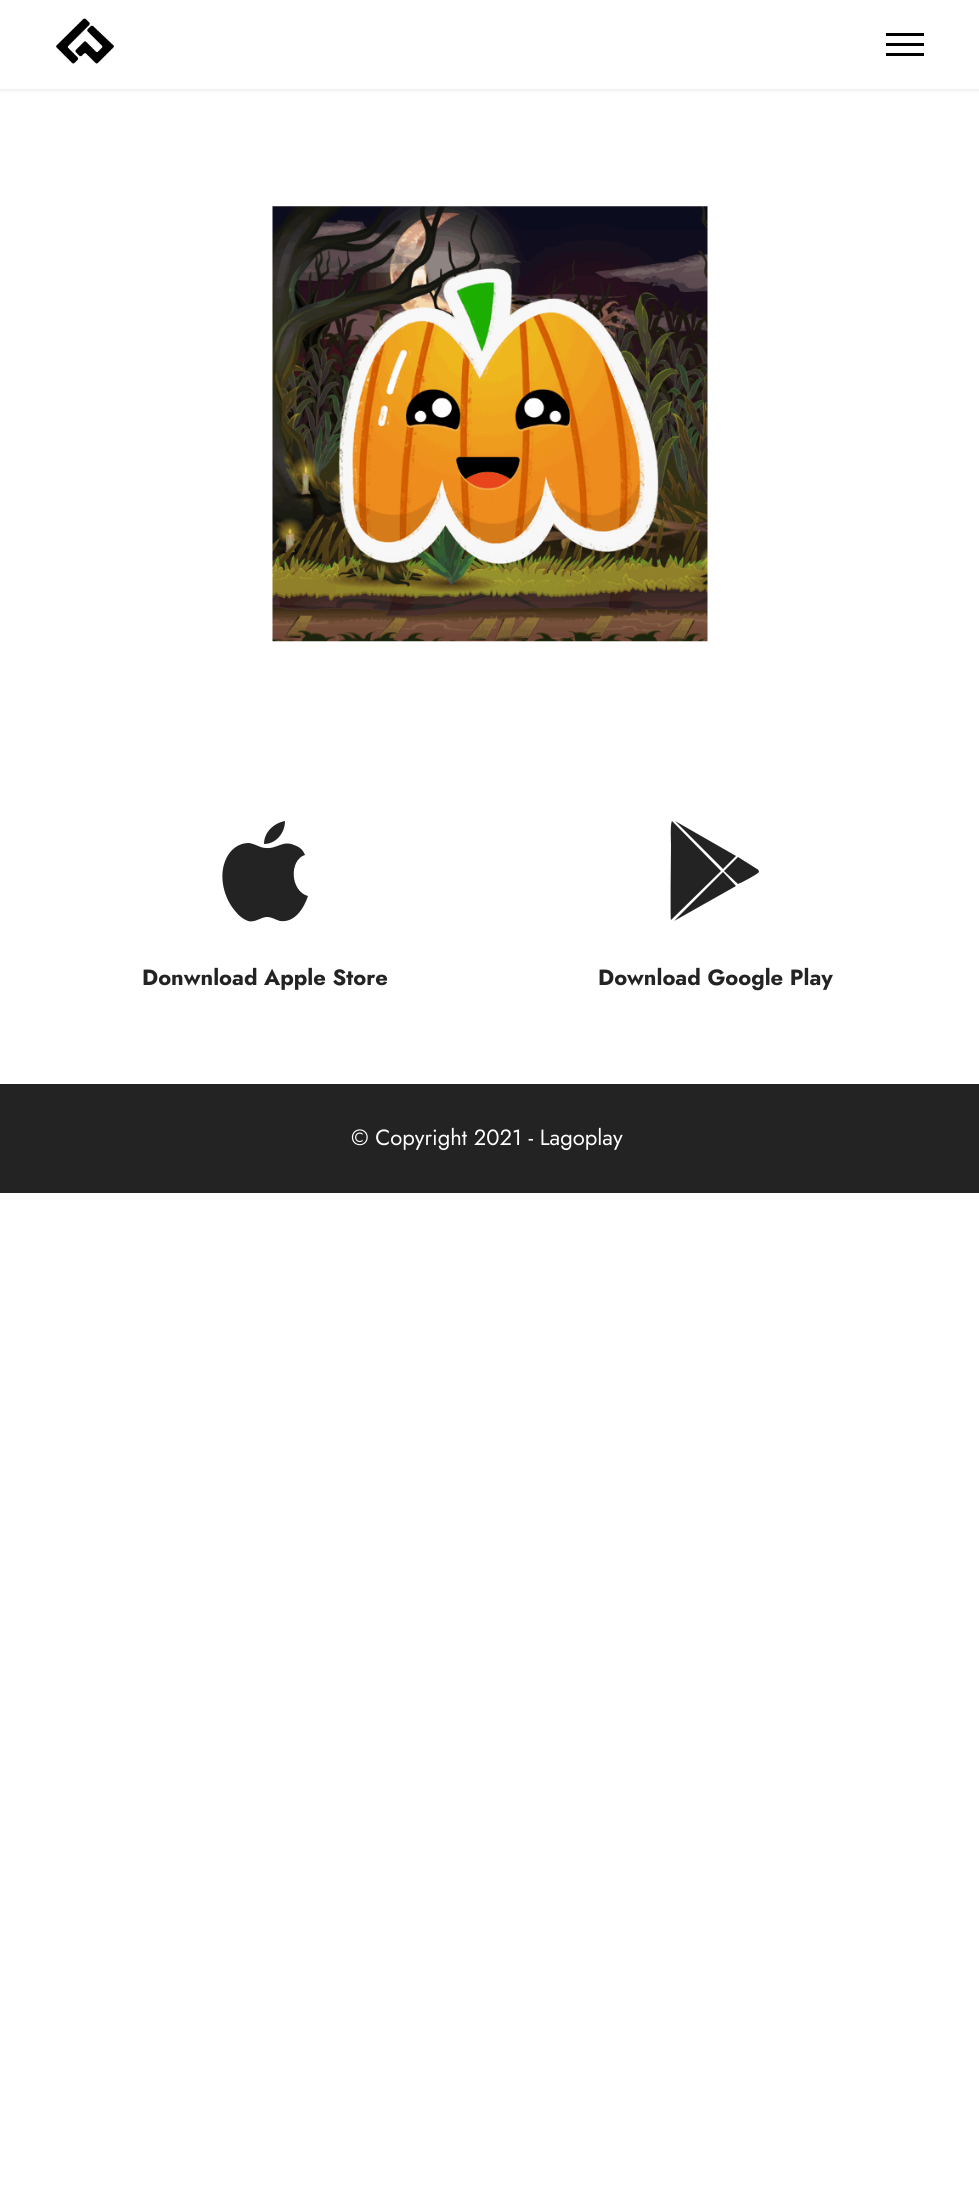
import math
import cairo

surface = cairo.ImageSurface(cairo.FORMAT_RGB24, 979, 2187)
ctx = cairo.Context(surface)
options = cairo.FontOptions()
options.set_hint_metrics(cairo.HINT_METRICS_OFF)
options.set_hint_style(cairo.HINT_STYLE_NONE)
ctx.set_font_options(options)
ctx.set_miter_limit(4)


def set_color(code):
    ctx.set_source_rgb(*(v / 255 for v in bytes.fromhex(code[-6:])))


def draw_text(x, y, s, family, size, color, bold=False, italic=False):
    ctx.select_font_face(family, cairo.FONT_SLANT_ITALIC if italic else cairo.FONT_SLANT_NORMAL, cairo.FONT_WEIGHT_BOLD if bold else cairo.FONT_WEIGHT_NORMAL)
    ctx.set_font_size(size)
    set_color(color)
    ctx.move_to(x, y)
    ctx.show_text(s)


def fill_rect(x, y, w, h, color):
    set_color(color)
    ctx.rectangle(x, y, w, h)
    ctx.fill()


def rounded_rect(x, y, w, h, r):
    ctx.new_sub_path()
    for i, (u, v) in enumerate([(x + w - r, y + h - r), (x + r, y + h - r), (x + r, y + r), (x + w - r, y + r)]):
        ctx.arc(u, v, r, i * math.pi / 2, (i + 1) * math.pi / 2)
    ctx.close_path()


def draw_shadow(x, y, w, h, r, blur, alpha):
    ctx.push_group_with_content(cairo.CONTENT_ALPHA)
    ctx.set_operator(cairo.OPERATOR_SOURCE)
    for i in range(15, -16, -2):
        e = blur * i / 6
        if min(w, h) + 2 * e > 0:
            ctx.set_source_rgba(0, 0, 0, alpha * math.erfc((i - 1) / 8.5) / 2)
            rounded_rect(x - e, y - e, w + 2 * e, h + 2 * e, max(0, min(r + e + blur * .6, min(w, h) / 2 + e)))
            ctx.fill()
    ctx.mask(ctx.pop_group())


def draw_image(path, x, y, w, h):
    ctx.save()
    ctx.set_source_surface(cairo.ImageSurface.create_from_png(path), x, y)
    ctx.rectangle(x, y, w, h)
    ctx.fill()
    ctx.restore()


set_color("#ffffff")
ctx.paint()
set_color("#000000")
draw_shadow(0, 1, 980, 89, 0, 2, 0.1)
fill_rect(0, 0, 979, 89, "#ffffff")
draw_image("assets/img1.png", 56, 18, 58, 46)
fill_rect(886, 33, 38, 3, "#000000")
fill_rect(886, 43, 38, 3, "#000000")
fill_rect(886, 53, 38, 3, "#000000")
draw_image("assets/img2.png", 272, 206, 436, 436)
set_color("#232323")
ctx.new_path()
ctx.move_to(305, 855)
ctx.curve_to(289, 860, 290, 891, 308, 896)
ctx.curve_to(304, 908, 295, 923, 280, 921)
ctx.curve_to(276, 920, 272, 917, 267, 917)
ctx.curve_to(261, 917, 255, 923, 248, 921)
ctx.curve_to(243, 919, 239, 916, 236, 912)
ctx.curve_to(224, 899, 218, 876, 226, 859)
ctx.curve_to(230, 850, 238, 843, 249, 843)
ctx.curve_to(256, 844, 260, 848, 266, 848)
ctx.curve_to(277, 849, 283, 840, 294, 845)
ctx.curve_to(300, 847, 303, 850, 305, 855)
ctx.close_path()
ctx.move_to(264, 844)
ctx.curve_to(264, 832, 274, 823, 285, 821)
ctx.curve_to(285, 833, 276, 844, 264, 844)
ctx.close_path()
ctx.fill()
draw_text(142, 985, "Donwnload Apple Store", "Jost", 22, "#232323", bold=True)
ctx.new_path()
ctx.move_to(723, 869)
ctx.line_to(736, 856)
ctx.line_to(675, 821)
ctx.close_path()
ctx.move_to(757, 869)
ctx.line_to(738, 857)
ctx.line_to(724, 871)
ctx.line_to(738, 884)
ctx.curve_to(741, 883, 758, 874, 759, 872)
ctx.curve_to(759, 871, 758, 869, 757, 869)
ctx.close_path()
ctx.move_to(672, 821)
ctx.curve_to(670, 824, 671, 842, 671, 845)
ctx.curve_to(671, 855, 670, 919, 671, 920)
ctx.line_to(721, 871)
ctx.close_path()
ctx.move_to(723, 872)
ctx.line_to(674, 921)
ctx.line_to(736, 886)
ctx.close_path()
ctx.fill()
draw_text(598, 985, "Download Google Play", "Jost", 22, "#232323", bold=True)
fill_rect(0, 1084, 979, 109, "#232323")
draw_text(351, 1145, "© Copyright 2021 - Lagoplay", "Jost", 22, "#ffffff")
surface.write_to_png("output.png")
